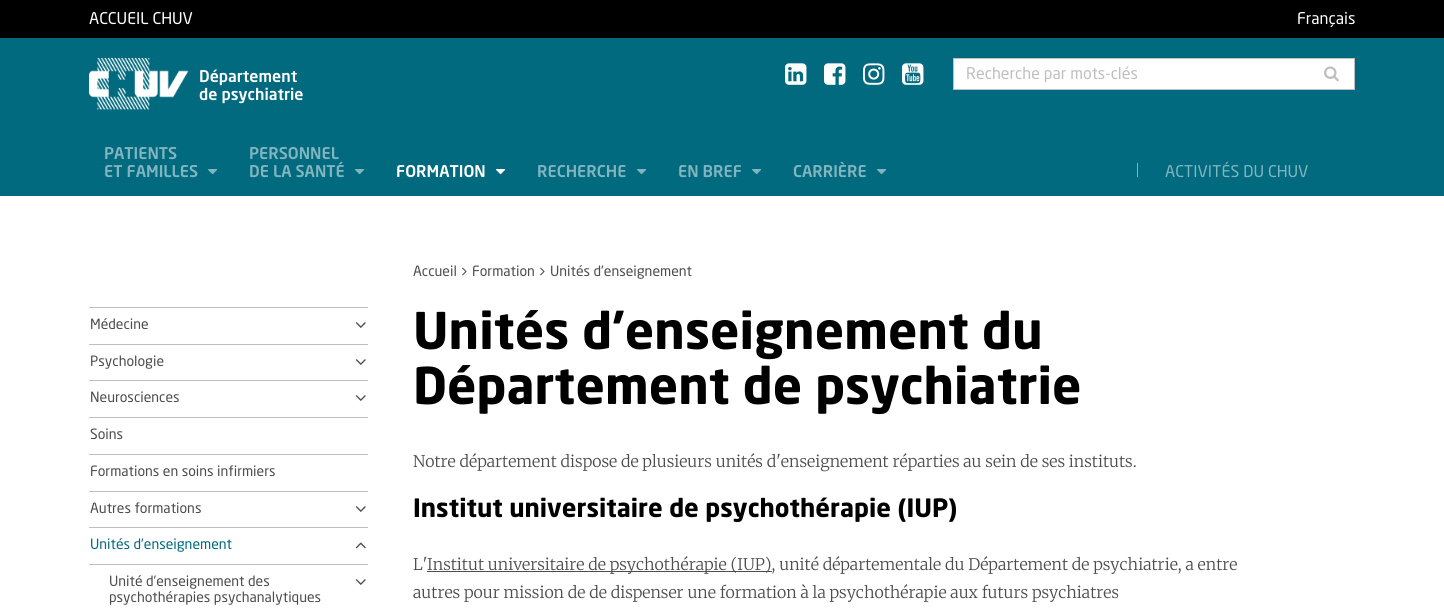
import math
import cairo

surface = cairo.ImageSurface(cairo.FORMAT_RGB24, 1444, 609)
ctx = cairo.Context(surface)
options = cairo.FontOptions()
options.set_hint_metrics(cairo.HINT_METRICS_OFF)
options.set_hint_style(cairo.HINT_STYLE_NONE)
ctx.set_font_options(options)
ctx.set_miter_limit(4)


def set_color(code):
    ctx.set_source_rgb(*(v / 255 for v in bytes.fromhex(code[-6:])))


def draw_text(x, y, s, family, size, color, bold=False, italic=False):
    ctx.select_font_face(family, cairo.FONT_SLANT_ITALIC if italic else cairo.FONT_SLANT_NORMAL, cairo.FONT_WEIGHT_BOLD if bold else cairo.FONT_WEIGHT_NORMAL)
    ctx.set_font_size(size)
    set_color(color)
    ctx.move_to(x, y)
    ctx.show_text(s)


def fill_rect(x, y, w, h, color):
    set_color(color)
    ctx.rectangle(x, y, w, h)
    ctx.fill()


def draw_image(path, x, y, w, h):
    ctx.save()
    ctx.set_source_surface(cairo.ImageSurface.create_from_png(path), x, y)
    ctx.rectangle(x, y, w, h)
    ctx.fill()
    ctx.restore()


set_color("#ffffff")
ctx.paint()
fill_rect(0, 0, 1444, 38, "#000000")
draw_text(89, 24, "ACCUEIL CHUV", "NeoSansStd", 16, "#ffffff")
draw_text(1297, 24, "Français", "NeoSansStd", 16, "#ffffff")
fill_rect(0, 38, 1444, 158, "#026a7e")
draw_image("assets/img1.png", 89, 58, 100, 52)
draw_text(199, 82, "Département", "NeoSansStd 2", 16, "#ffffff")
draw_text(199, 100, "de psychiatrie", "NeoSansStd 2", 16, "#ffffff")
draw_image("assets/img2.png", 785, 63, 22, 22)
draw_image("assets/img3.png", 824, 63, 22, 22)
draw_image("assets/img4.png", 863, 63, 22, 22)
draw_image("assets/img5.png", 902, 63, 22, 22)
fill_rect(954, 59, 400, 30, "#ffffff")
fill_rect(953, 58, 402, 1, "#bfbfbf")
fill_rect(1354, 58, 1, 32, "#bfbfbf")
fill_rect(953, 89, 402, 1, "#bfbfbf")
draw_image("assets/img6.png", 1324, 66, 15, 16)
fill_rect(953, 58, 1, 32, "#bfbfbf")
draw_text(966, 79, "Recherche par mots-clés", "NeoSansStd", 16, "#bfbfbf")
draw_text(104, 159, "PATIENTS", "NeoSansStd 2", 16, "#81b5bf")
draw_text(104, 177, "ET FAMILLES", "NeoSansStd 2", 16, "#81b5bf")
draw_image("assets/img7.png", 208, 169, 10, 6)
draw_text(249, 159, "PERSONNEL", "NeoSansStd 2", 16, "#81b5bf")
draw_text(249, 177, "DE LA SANTÉ", "NeoSansStd 2", 16, "#81b5bf")
draw_image("assets/img7.png", 355, 169, 10, 6)
draw_text(396, 177, "FORMATION", "NeoSansStd 2", 16, "#ffffff")
draw_image("assets/img8.png", 496, 169, 10, 6)
draw_text(537, 177, "RECHERCHE", "NeoSansStd 2", 16, "#81b5bf")
draw_image("assets/img7.png", 637, 169, 10, 6)
draw_text(678, 177, "EN BREF", "NeoSansStd 2", 16, "#81b5bf")
draw_image("assets/img7.png", 752, 169, 10, 6)
draw_text(793, 177, "CARRIÈRE", "NeoSansStd 2", 16, "#81b5bf")
draw_image("assets/img7.png", 877, 169, 10, 6)
fill_rect(1137, 163, 1, 14, "#81b5bf")
draw_text(1165, 177, "ACTIVITÉS DU CHUV", "NeoSansStd", 16, "#81b5bf")
draw_text(413, 276, "Accueil", "NeoSansStd", 14, "#4d4d4d")
draw_image("assets/img9.png", 462, 267, 5, 9)
draw_text(472, 276, "Formation", "NeoSansStd", 14, "#4d4d4d")
draw_image("assets/img9.png", 540, 267, 5, 9)
draw_text(550, 276, "Unités d'enseignement", "NeoSansStd", 14, "#4d4d4d")
fill_rect(89, 307, 279, 1, "#bfbfbf")
draw_text(90, 329, "Médecine", "NeoSansStd", 14, "#4d4d4d")
draw_image("assets/img10.png", 355, 322, 11, 6)
fill_rect(89, 344, 279, 1, "#bfbfbf")
draw_text(90, 366, "Psychologie", "NeoSansStd", 14, "#4d4d4d")
draw_image("assets/img10.png", 355, 359, 11, 6)
fill_rect(89, 380, 279, 1, "#bfbfbf")
draw_text(90, 402, "Neurosciences", "NeoSansStd", 14, "#4d4d4d")
draw_image("assets/img10.png", 355, 395, 11, 6)
fill_rect(89, 417, 279, 1, "#bfbfbf")
draw_text(90, 439, "Soins", "NeoSansStd", 14, "#4d4d4d")
fill_rect(89, 454, 279, 1, "#bfbfbf")
draw_text(90, 476, "Formations en soins infirmiers", "NeoSansStd", 14, "#4d4d4d")
fill_rect(89, 491, 279, 1, "#bfbfbf")
draw_text(90, 513, "Autres formations", "NeoSansStd", 14, "#4d4d4d")
draw_image("assets/img10.png", 355, 506, 11, 6)
fill_rect(89, 527, 279, 1, "#bfbfbf")
draw_text(90, 549, "Unités d'enseignement", "NeoSansStd", 14, "#026a7e")
draw_image("assets/img11.png", 355, 542, 11, 7)
fill_rect(89, 564, 279, 1, "#bfbfbf")
draw_text(109, 586, "Unité d'enseignement des", "NeoSansStd", 14, "#4d4d4d")
draw_text(109, 602, "psychothérapies psychanalytiques", "NeoSansStd", 14, "#4d4d4d")
draw_image("assets/img10.png", 355, 579, 11, 6)
draw_text(413, 349, "Unités d'enseignement du", "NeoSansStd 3", 50, "#000000")
draw_text(413, 404, "Département de psychiatrie", "NeoSansStd 3", 50, "#000000")
draw_text(413, 467, "Notre département dispose de plusieurs unités d'enseignement réparties au sein de ses instituts.", "Merriweather Light", 16, "#4d4d4d")
draw_text(413, 517, "Institut universitaire de psychothérapie (IUP)", "NeoSansStd 3", 25, "#000000")
draw_text(413, 570, "L'", "Merriweather Light", 16, "#4d4d4d")
fill_rect(427, 571, 345, 1, "#4d4d4d")
draw_text(427, 570, "Institut universitaire de psychothérapie (IUP), unité départementale du Département de psychiatrie, a entre", "Merriweather Light", 16, "#4d4d4d")
draw_text(413, 598, "autres pour mission de de dispenser une formation à la psychothérapie aux futurs psychiatres", "Merriweather Light", 16, "#4d4d4d")
surface.write_to_png("output.png")
